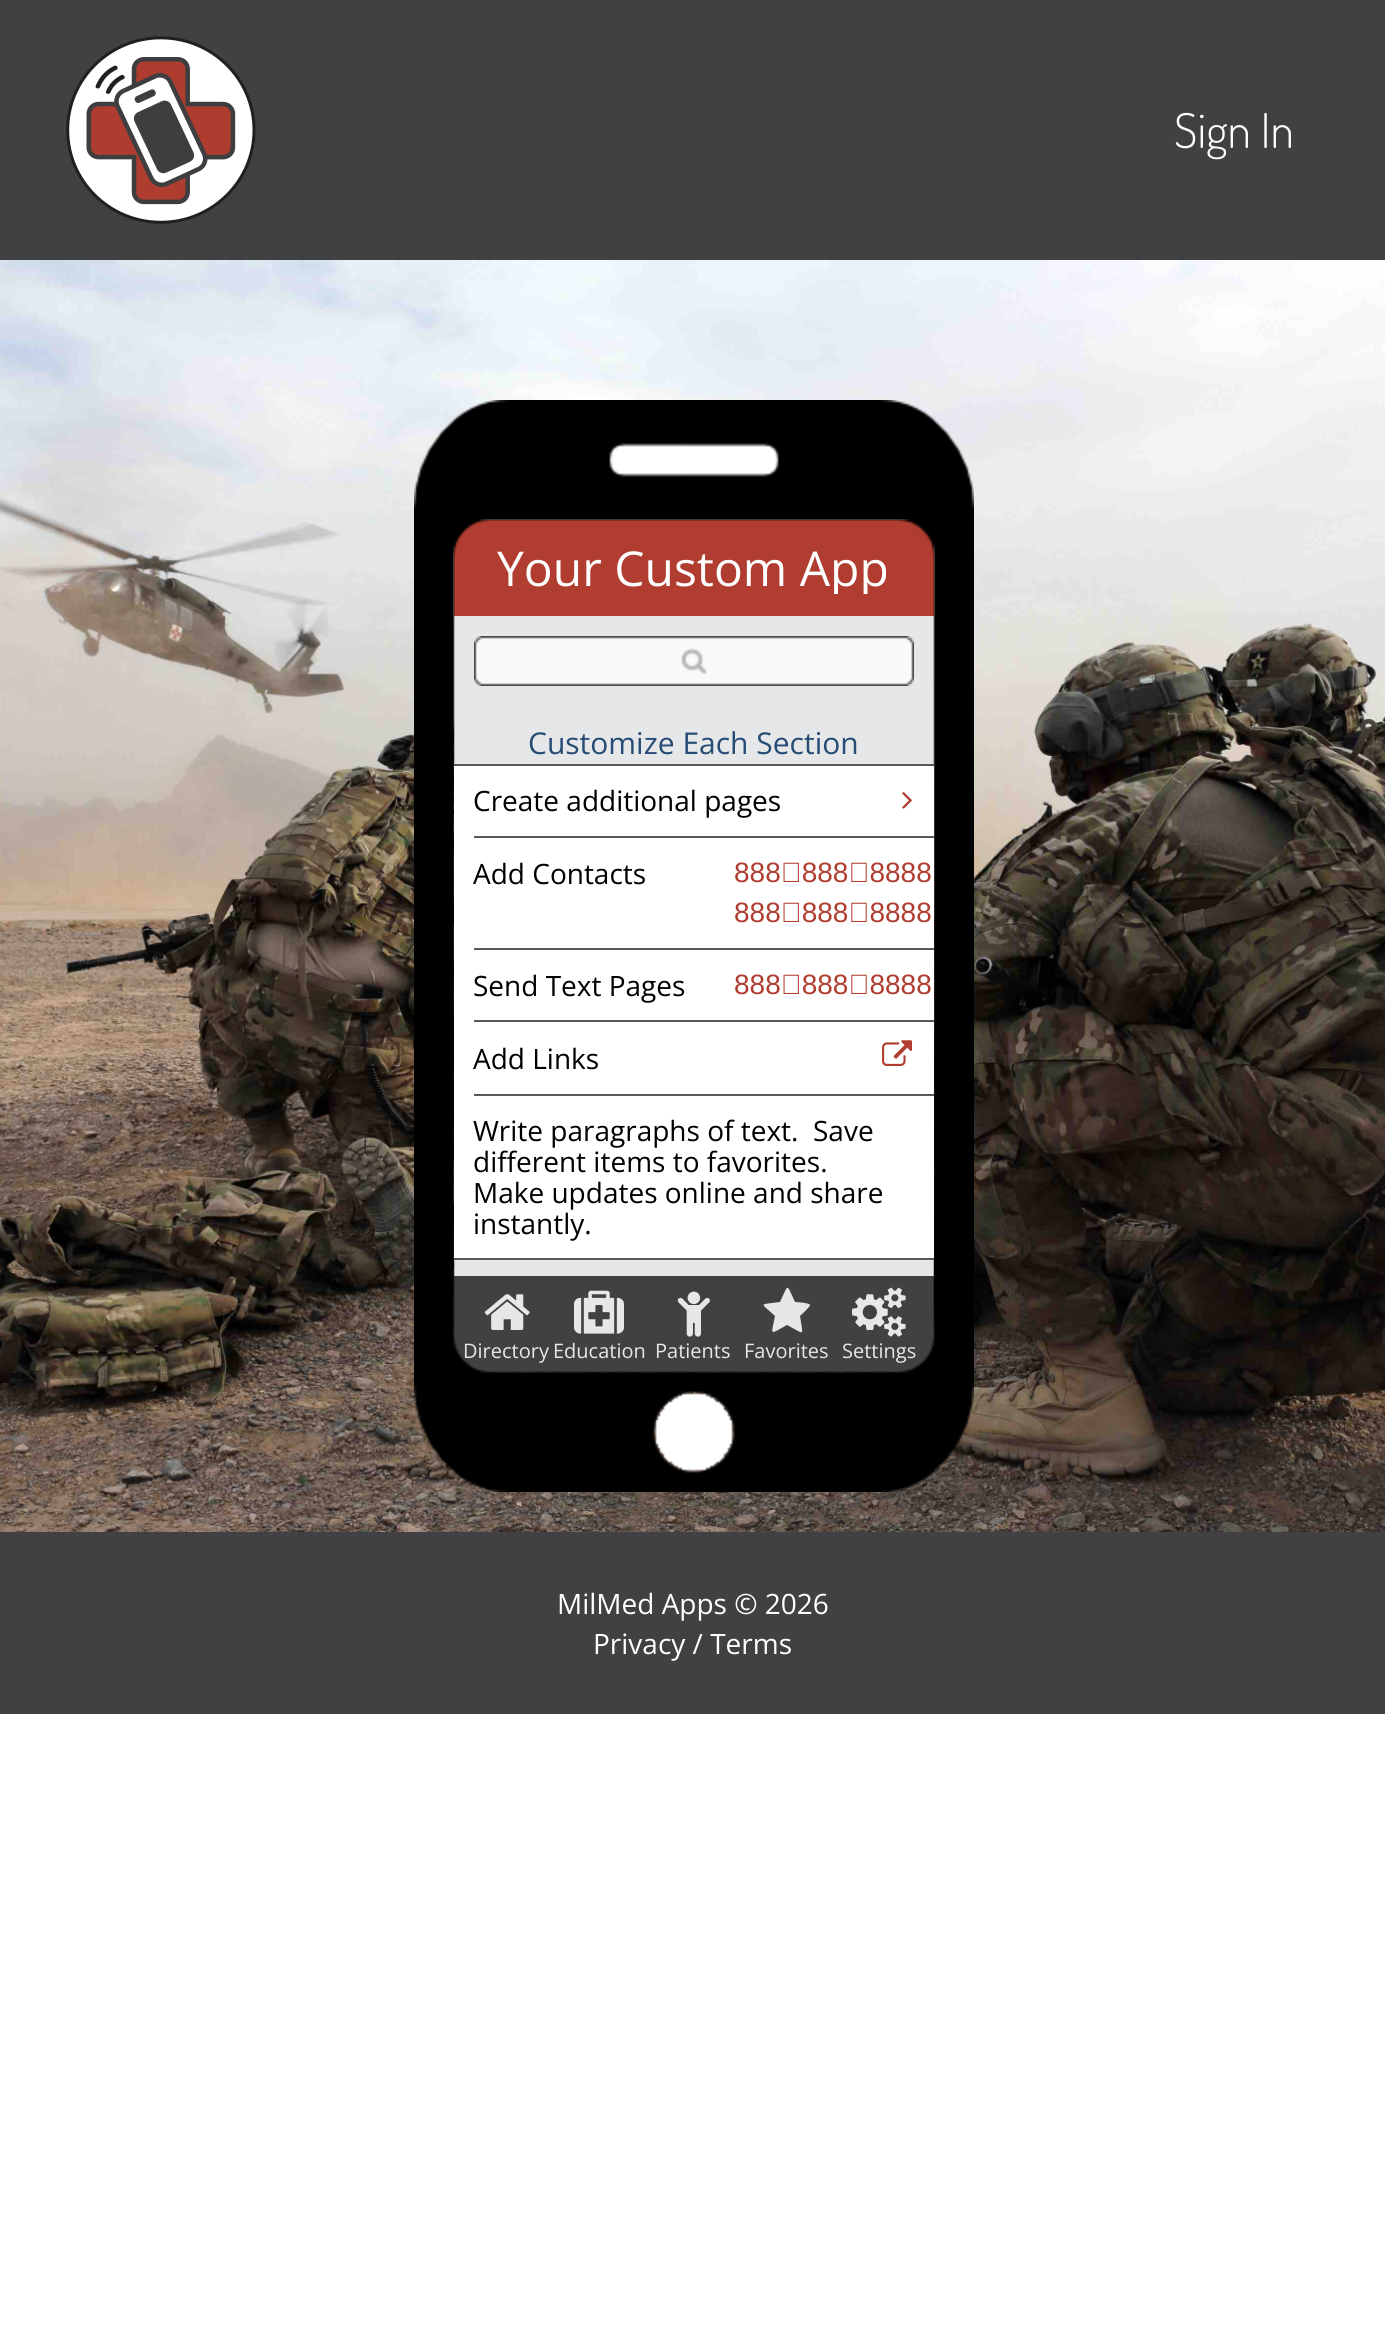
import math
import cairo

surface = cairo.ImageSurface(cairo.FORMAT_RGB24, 1385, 2344)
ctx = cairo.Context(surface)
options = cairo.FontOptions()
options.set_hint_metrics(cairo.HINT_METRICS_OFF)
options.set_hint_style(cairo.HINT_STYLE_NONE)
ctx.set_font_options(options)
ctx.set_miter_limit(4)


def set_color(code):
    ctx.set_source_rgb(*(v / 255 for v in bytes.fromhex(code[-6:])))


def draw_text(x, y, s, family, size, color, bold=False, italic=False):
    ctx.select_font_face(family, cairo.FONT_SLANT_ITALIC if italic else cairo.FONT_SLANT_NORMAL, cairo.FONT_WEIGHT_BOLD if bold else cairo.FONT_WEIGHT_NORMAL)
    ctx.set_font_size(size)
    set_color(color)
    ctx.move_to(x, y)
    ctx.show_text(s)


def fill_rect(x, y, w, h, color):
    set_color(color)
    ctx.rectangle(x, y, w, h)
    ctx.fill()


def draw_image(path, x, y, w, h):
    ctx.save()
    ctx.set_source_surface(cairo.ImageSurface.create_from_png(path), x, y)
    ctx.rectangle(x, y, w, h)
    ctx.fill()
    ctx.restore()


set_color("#ffffff")
ctx.paint()
fill_rect(0, 0, 1385, 260, "#414042")
draw_image("assets/img1.png", 66, 36, 190, 188)
draw_text(1174, 148, "Sign In", "Dosis Light", 48, "#ffffff")
draw_image("assets/img2.png", 0, 260, 1385, 1272)
fill_rect(454, 520, 480, 96, "#b03d30")
ctx.save()
ctx.rectangle(454, 542, 480, 52)
ctx.clip()
draw_text(497, 586, "Your Custom App", "Open Sans", 48, "#ffffff")
ctx.restore()
fill_rect(454, 616, 480, 660, "#e6e7e8")
fill_rect(454, 1276, 480, 96, "#414042")
draw_image("assets/img3.png", 414, 400, 560, 1092)
draw_image("assets/img4.png", 474, 636, 440, 50)
draw_text(528, 754, "Customize Each Section", "Open Sans", 30, "#264c75")
fill_rect(454, 764, 480, 2, "#58595b")
fill_rect(454, 766, 480, 70, "#ffffff")
draw_text(473, 811, "Create additional pages", "Open Sans", 28, "#000000")
draw_image("assets/img5.png", 902, 792, 10, 17)
fill_rect(454, 836, 20, 2, "#ffffff")
fill_rect(474, 836, 460, 2, "#58595b")
fill_rect(454, 838, 480, 110, "#ffffff")
draw_text(473, 884, "Add Contacts", "Open Sans", 28, "#000000")
draw_text(734, 882, "888‑888‑8888", "Liberation Sans", 28, "#b03d30")
draw_text(734, 922, "888‑888‑8888", "Liberation Sans", 28, "#b03d30")
fill_rect(454, 948, 20, 2, "#ffffff")
fill_rect(474, 948, 460, 2, "#58595b")
fill_rect(454, 950, 480, 70, "#ffffff")
draw_text(473, 996, "Send Text Pages", "Open Sans", 28, "#000000")
draw_text(734, 994, "888‑888‑8888", "Liberation Sans", 28, "#b03d30")
fill_rect(454, 1020, 20, 2, "#ffffff")
fill_rect(474, 1020, 460, 2, "#58595b")
fill_rect(454, 1022, 480, 72, "#ffffff")
draw_text(473, 1069, "Add Links", "Open Sans", 28, "#000000")
draw_image("assets/img6.png", 882, 1040, 30, 26)
fill_rect(454, 1094, 20, 2, "#ffffff")
fill_rect(474, 1094, 460, 2, "#58595b")
fill_rect(454, 1096, 480, 162, "#ffffff")
draw_text(473, 1141, "Write paragraphs of text.", "Open Sans", 28, "#000000")
draw_text(813, 1141, "Save", "Open Sans", 28, "#000000")
draw_text(473, 1172, "different items to favorites.", "Open Sans", 28, "#000000")
draw_text(473, 1203, "Make updates online and share", "Open Sans", 28, "#000000")
draw_text(473, 1234, "instantly.", "Open Sans", 28, "#000000")
fill_rect(454, 1258, 480, 2, "#58595b")
draw_image("assets/img7.png", 484, 1294, 46, 36)
draw_text(463, 1358, "Directory", "Open Sans", 20, "#e6e7e8")
draw_image("assets/img8.png", 574, 1290, 50, 44)
draw_text(553, 1358, "Education", "Open Sans", 20, "#e6e7e8")
draw_image("assets/img9.png", 677, 1291, 33, 46)
draw_text(655, 1358, "Patients", "Open Sans", 20, "#e6e7e8")
ctx.new_path()
ctx.move_to(810, 1305)
ctx.curve_to(810, 1307, 801, 1315, 800, 1316)
ctx.curve_to(803, 1337, 806, 1335, 787, 1325)
ctx.curve_to(769, 1335, 771, 1336, 775, 1316)
ctx.curve_to(760, 1302, 758, 1305, 780, 1302)
ctx.curve_to(789, 1283, 786, 1283, 795, 1302)
ctx.curve_to(797, 1302, 810, 1303, 810, 1305)
ctx.close_path()
ctx.fill()
draw_text(744, 1358, "Favorites", "Open Sans", 20, "#e6e7e8")
draw_image("assets/img10.png", 852, 1287, 54, 50)
draw_text(842, 1358, "Settings", "Open Sans", 20, "#e6e7e8")
fill_rect(0, 1532, 1385, 182, "#414042")
draw_text(557, 1614, "MilMed Apps © 2026", "Open Sans", 28, "#ffffff")
draw_text(593, 1654, "Privacy / Terms", "Open Sans", 28, "#ffffff")
surface.write_to_png("output.png")
